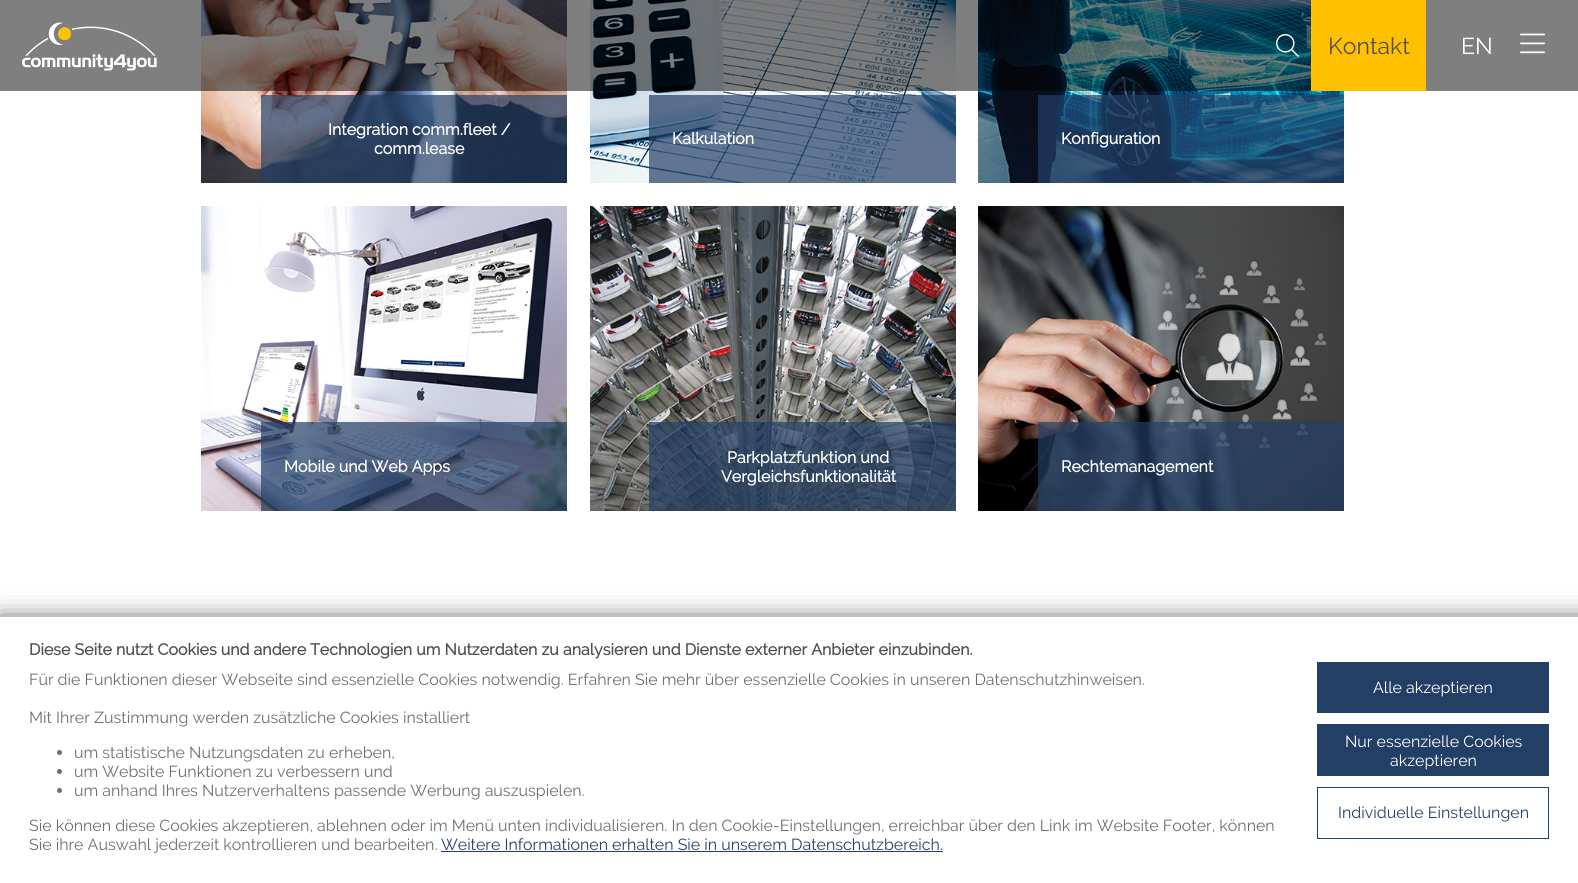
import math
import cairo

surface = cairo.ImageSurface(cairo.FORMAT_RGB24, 1578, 883)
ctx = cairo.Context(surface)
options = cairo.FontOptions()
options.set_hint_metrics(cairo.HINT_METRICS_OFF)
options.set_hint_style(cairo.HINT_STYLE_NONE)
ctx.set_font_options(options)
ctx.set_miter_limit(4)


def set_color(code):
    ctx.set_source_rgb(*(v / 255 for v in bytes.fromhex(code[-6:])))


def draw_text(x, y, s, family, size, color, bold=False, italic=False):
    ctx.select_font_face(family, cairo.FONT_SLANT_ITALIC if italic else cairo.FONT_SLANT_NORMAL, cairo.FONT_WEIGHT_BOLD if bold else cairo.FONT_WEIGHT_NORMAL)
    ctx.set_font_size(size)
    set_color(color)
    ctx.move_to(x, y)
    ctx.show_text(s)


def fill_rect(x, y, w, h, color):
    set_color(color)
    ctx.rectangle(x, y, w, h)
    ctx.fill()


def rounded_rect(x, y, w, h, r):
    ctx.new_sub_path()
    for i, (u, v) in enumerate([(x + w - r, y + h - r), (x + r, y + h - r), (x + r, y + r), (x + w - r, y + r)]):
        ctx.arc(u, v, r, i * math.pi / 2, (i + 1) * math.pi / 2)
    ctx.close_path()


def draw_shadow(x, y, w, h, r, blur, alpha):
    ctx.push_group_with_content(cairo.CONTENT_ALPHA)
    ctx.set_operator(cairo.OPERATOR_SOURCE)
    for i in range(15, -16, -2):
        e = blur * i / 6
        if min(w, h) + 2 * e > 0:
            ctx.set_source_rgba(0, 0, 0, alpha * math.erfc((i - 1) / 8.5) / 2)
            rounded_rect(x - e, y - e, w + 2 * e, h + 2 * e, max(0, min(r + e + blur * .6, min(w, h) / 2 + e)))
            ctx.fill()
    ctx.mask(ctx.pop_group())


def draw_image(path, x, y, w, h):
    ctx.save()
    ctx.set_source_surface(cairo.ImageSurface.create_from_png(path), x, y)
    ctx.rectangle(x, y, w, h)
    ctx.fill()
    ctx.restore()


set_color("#ffffff")
ctx.paint()
draw_image("assets/img4.png", 201, 0, 366, 183)
draw_image("assets/img5.png", 590, 0, 366, 183)
draw_image("assets/img6.png", 978, 0, 366, 183)
ctx.set_source_rgba(0, 0, 0, 0.5)
ctx.rectangle(0, 0, 1578, 91)
ctx.fill()
draw_image("assets/img1.png", 1276, 34, 23, 23)
fill_rect(1311, 0, 115, 91, "#ffc000")
draw_text(1328, 54, "Kontakt", "Raleway", 23, "#505050")
draw_text(1461, 54, "EN", "Raleway", 23, "#ffffff")
draw_image("assets/img2.png", 22, 22, 135, 49)
draw_image("assets/img3.png", 1520, 33, 25, 21)
ctx.set_source_rgba(0.137, 0.247, 0.4, 0.7)
ctx.rectangle(261, 95, 306, 88)
ctx.fill()
draw_text(328, 135, "Integration comm.fleet /", "Raleway", 16, "#ffffff", bold=True)
draw_text(374, 154, "comm.lease", "Raleway", 16, "#ffffff", bold=True)
ctx.set_source_rgba(0.137, 0.247, 0.4, 0.7)
ctx.rectangle(649, 95, 307, 88)
ctx.fill()
draw_text(672, 144, "Kalkulation", "Raleway", 16, "#ffffff", bold=True)
ctx.set_source_rgba(0.137, 0.247, 0.4, 0.7)
ctx.rectangle(1038, 95, 306, 88)
ctx.fill()
draw_text(1061, 144, "Konfiguration", "Raleway", 16, "#ffffff", bold=True)
draw_image("assets/img7.png", 201, 206, 366, 305)
ctx.set_source_rgba(0.137, 0.247, 0.4, 0.7)
ctx.rectangle(261, 422, 306, 89)
ctx.fill()
draw_text(284, 472, "Mobile und Web Apps", "Raleway", 16, "#ffffff", bold=True)
draw_image("assets/img8.png", 590, 206, 366, 305)
ctx.set_source_rgba(0.137, 0.247, 0.4, 0.7)
ctx.rectangle(649, 422, 307, 89)
ctx.fill()
draw_text(727, 463, "Parkplatzfunktion und", "Raleway", 16, "#ffffff", bold=True)
draw_text(721, 482, "Vergleichsfunktionalität", "Raleway", 16, "#ffffff", bold=True)
draw_image("assets/img9.png", 978, 206, 366, 305)
ctx.set_source_rgba(0.137, 0.247, 0.4, 0.7)
ctx.rectangle(1038, 422, 306, 89)
ctx.fill()
draw_text(1061, 472, "Rechtemanagement", "Raleway", 16, "#ffffff", bold=True)
set_color("#000000")
draw_shadow(0, 624, 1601, 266, 0, 13.5, 1)
fill_rect(0, 617, 1578, 266, "#ffffff")
draw_text(29, 655, "Diese Seite nutzt Cookies und andere Technologien um Nutzerdaten zu analysieren und Dienste externer Anbieter einzubinden.", "Raleway", 16, "#505050", bold=True)
draw_text(29, 685, "Für die Funktionen dieser Webseite sind essenzielle Cookies notwendig. Erfahren Sie mehr über essenzielle Cookies in unseren Datenschutzhinweisen.", "Raleway", 16, "#6e6e6e")
draw_text(29, 723, "Mit Ihrer Zustimmung werden zusätzliche Cookies installiert", "Raleway", 16, "#6e6e6e")
ctx.new_path()
ctx.arc(59.5, 752.5, 2.5, 0, 2 * math.pi)
ctx.fill()
draw_text(74, 758, "um statistische Nutzungsdaten zu erheben,", "Raleway", 16, "#6e6e6e")
ctx.new_path()
ctx.arc(59.5, 771.5, 2.5, 0, 2 * math.pi)
ctx.fill()
draw_text(74, 777, "um Website Funktionen zu verbessern und", "Raleway", 16, "#6e6e6e")
ctx.new_path()
ctx.arc(59.5, 790.5, 2.5, 0, 2 * math.pi)
ctx.fill()
draw_text(74, 796, "um anhand Ihres Nutzerverhaltens passende Werbung auszuspielen.", "Raleway", 16, "#6e6e6e")
draw_text(29, 831, "Sie können diese Cookies akzeptieren, ablehnen oder im Menü unten individualisieren. In den Cookie-Einstellungen, erreichbar über den Link im Website Footer, können", "Raleway", 16, "#6e6e6e")
draw_text(29, 850, "Sie ihre Auswahl jederzeit kontrollieren und bearbeiten.", "Raleway", 16, "#6e6e6e")
draw_text(441, 850, "Weitere Informationen erhalten Sie in unserem Datenschutzbereich.", "Raleway", 16, "#233f66")
fill_rect(441, 851, 502, 1, "#233f66")
fill_rect(1317, 662, 232, 51, "#233f66")
draw_text(1373, 693, "Alle akzeptieren", "Raleway", 16, "#ffffff")
fill_rect(1317, 724, 232, 52, "#233f66")
draw_text(1345, 747, "Nur essenzielle Cookies", "Raleway", 16, "#ffffff")
draw_text(1390, 766, "akzeptieren", "Raleway", 16, "#ffffff")
ctx.rectangle(1317.5, 787.5, 231, 51)
set_color("#233f66")
ctx.set_line_width(1)
ctx.stroke()
draw_text(1338, 818, "Individuelle Einstellungen", "Raleway", 16, "#233f66")
surface.write_to_png("output.png")
